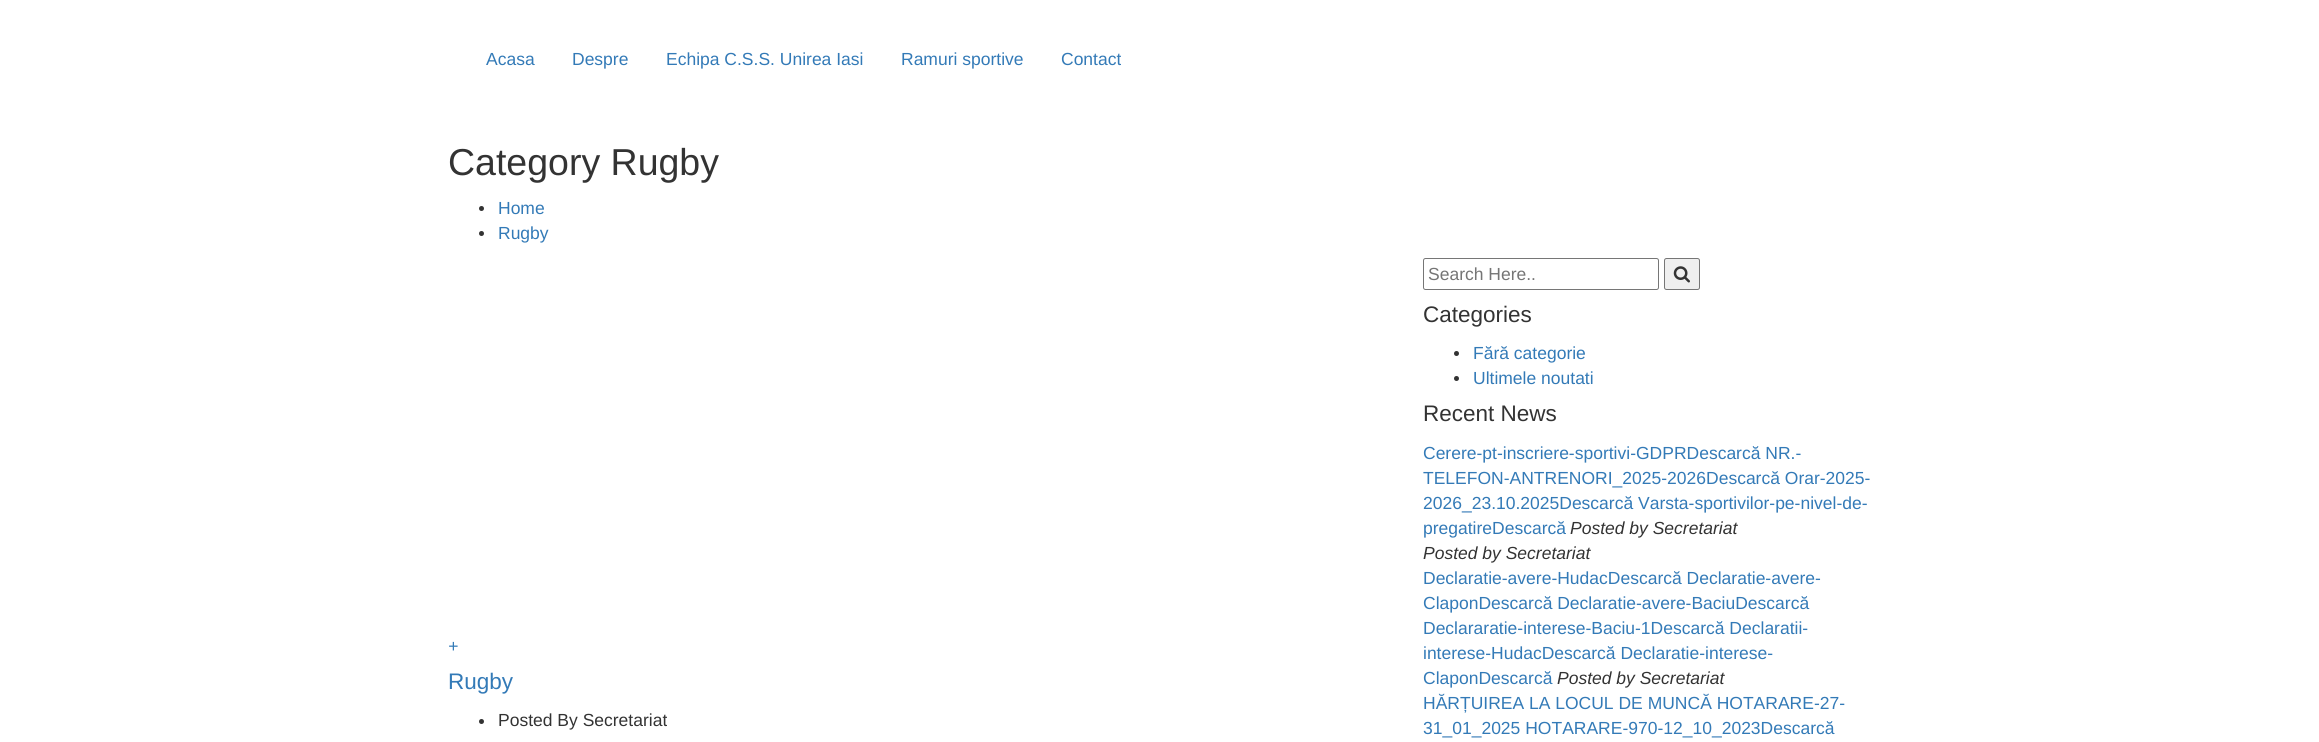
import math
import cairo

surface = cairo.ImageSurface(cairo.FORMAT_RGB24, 2319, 742)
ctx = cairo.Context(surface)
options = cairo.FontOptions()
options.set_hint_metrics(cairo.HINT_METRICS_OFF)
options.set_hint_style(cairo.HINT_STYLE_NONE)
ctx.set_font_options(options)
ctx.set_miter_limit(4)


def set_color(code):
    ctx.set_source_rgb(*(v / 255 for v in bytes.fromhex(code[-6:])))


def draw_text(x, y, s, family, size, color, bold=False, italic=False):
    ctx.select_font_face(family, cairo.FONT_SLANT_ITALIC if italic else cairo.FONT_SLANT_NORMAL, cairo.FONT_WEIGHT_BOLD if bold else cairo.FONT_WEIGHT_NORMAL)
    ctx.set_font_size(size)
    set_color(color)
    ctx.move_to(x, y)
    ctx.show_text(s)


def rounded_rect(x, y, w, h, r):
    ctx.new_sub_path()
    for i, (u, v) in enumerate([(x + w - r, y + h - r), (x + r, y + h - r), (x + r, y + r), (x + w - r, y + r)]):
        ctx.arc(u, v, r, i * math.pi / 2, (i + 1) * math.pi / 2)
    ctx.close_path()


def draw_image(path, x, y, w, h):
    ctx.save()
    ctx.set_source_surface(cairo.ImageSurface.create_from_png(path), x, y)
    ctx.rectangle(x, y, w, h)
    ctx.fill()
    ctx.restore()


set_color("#ffffff")
ctx.paint()
draw_text(486, 65, "Acasa", "Liberation Sans", 17.5, "#337ab7")
draw_text(572, 65, "Despre", "Liberation Sans", 17.5, "#337ab7")
draw_text(666, 65, "Echipa C.S.S. Unirea Iasi", "Liberation Sans", 17.5, "#337ab7")
draw_text(901, 65, "Ramuri sportive", "Liberation Sans", 17.5, "#337ab7")
draw_text(1061, 65, "Contact", "Liberation Sans", 17.5, "#337ab7")
draw_text(448, 175, "Category Rugby", "Liberation Sans", 37.5, "#333333")
ctx.new_path()
ctx.arc(481.5, 208.5, 2.5, 0, 2 * math.pi)
ctx.fill()
draw_text(498, 214, "Home", "Liberation Sans", 17.5, "#337ab7")
set_color("#333333")
ctx.new_path()
ctx.arc(481.5, 233.5, 2.5, 0, 2 * math.pi)
ctx.fill()
draw_text(498, 239, "Rugby", "Liberation Sans", 17.5, "#337ab7")
draw_text(448, 652, "+", "Liberation Sans", 17.5, "#337ab7", italic=True)
draw_text(448, 689, "Rugby", "Liberation Sans", 22.5, "#337ab7")
set_color("#333333")
ctx.new_path()
ctx.arc(481.5, 721.5, 2.5, 0, 2 * math.pi)
ctx.fill()
draw_text(498, 726, "Posted By Secretariat", "Liberation Sans", 17.5, "#333333")
rounded_rect(1423.5, 258.5, 235, 31, 2)
set_color("#767676")
ctx.set_line_width(1)
ctx.stroke()
draw_text(1428, 280, "Search Here..", "Liberation Sans", 17.5, "#757575")
set_color("#efefef")
rounded_rect(1664.5, 258.5, 35, 31, 2)
ctx.fill_preserve()
set_color("#767676")
ctx.stroke()
draw_image("assets/img1.png", 1673, 266, 17, 17)
draw_text(1423, 322, "Categories", "Liberation Sans", 22.5, "#333333")
ctx.new_path()
ctx.arc(1456.5, 353.5, 2.5, 0, 2 * math.pi)
ctx.fill()
draw_text(1473, 359, "Fără categorie", "Liberation Sans", 17.5, "#337ab7")
set_color("#333333")
ctx.new_path()
ctx.arc(1456.5, 378.5, 2.5, 0, 2 * math.pi)
ctx.fill()
draw_text(1473, 384, "Ultimele noutati", "Liberation Sans", 17.5, "#337ab7")
draw_text(1423, 421, "Recent News", "Liberation Sans", 22.5, "#333333")
draw_text(1423, 459, "Cerere-pt-inscriere-sportivi-GDPRDescarcă NR.-", "Liberation Sans", 17.5, "#337ab7")
draw_text(1423, 484, "TELEFON-ANTRENORI_2025-2026Descarcă Orar-2025-", "Liberation Sans", 17.5, "#337ab7")
draw_text(1423, 509, "2026_23.10.2025Descarcă Varsta-sportivilor-pe-nivel-de-", "Liberation Sans", 17.5, "#337ab7")
draw_text(1423, 534, "pregatireDescarcă", "Liberation Sans", 17.5, "#337ab7")
draw_text(1570, 534, "Posted by Secretariat", "Liberation Sans", 17.5, "#333333", italic=True)
draw_text(1423, 559, "Posted by Secretariat", "Liberation Sans", 17.5, "#333333", italic=True)
draw_text(1423, 584, "Declaratie-avere-HudacDescarcă Declaratie-avere-", "Liberation Sans", 17.5, "#337ab7")
draw_text(1423, 609, "ClaponDescarcă Declaratie-avere-BaciuDescarcă", "Liberation Sans", 17.5, "#337ab7")
draw_text(1423, 634, "Declararatie-interese-Baciu-1Descarcă Declaratii-", "Liberation Sans", 17.5, "#337ab7")
draw_text(1423, 659, "interese-HudacDescarcă Declaratie-interese-", "Liberation Sans", 17.5, "#337ab7")
draw_text(1423, 684, "ClaponDescarcă", "Liberation Sans", 17.5, "#337ab7")
draw_text(1557, 684, "Posted by Secretariat", "Liberation Sans", 17.5, "#333333", italic=True)
draw_text(1423, 709, "HĂRȚUIREA LA LOCUL DE MUNCĂ HOTARARE-27-", "Liberation Sans", 17.5, "#337ab7")
draw_text(1423, 734, "31_01_2025 HOTARARE-970-12_10_2023Descarcă", "Liberation Sans", 17.5, "#337ab7")
surface.write_to_png("output.png")
